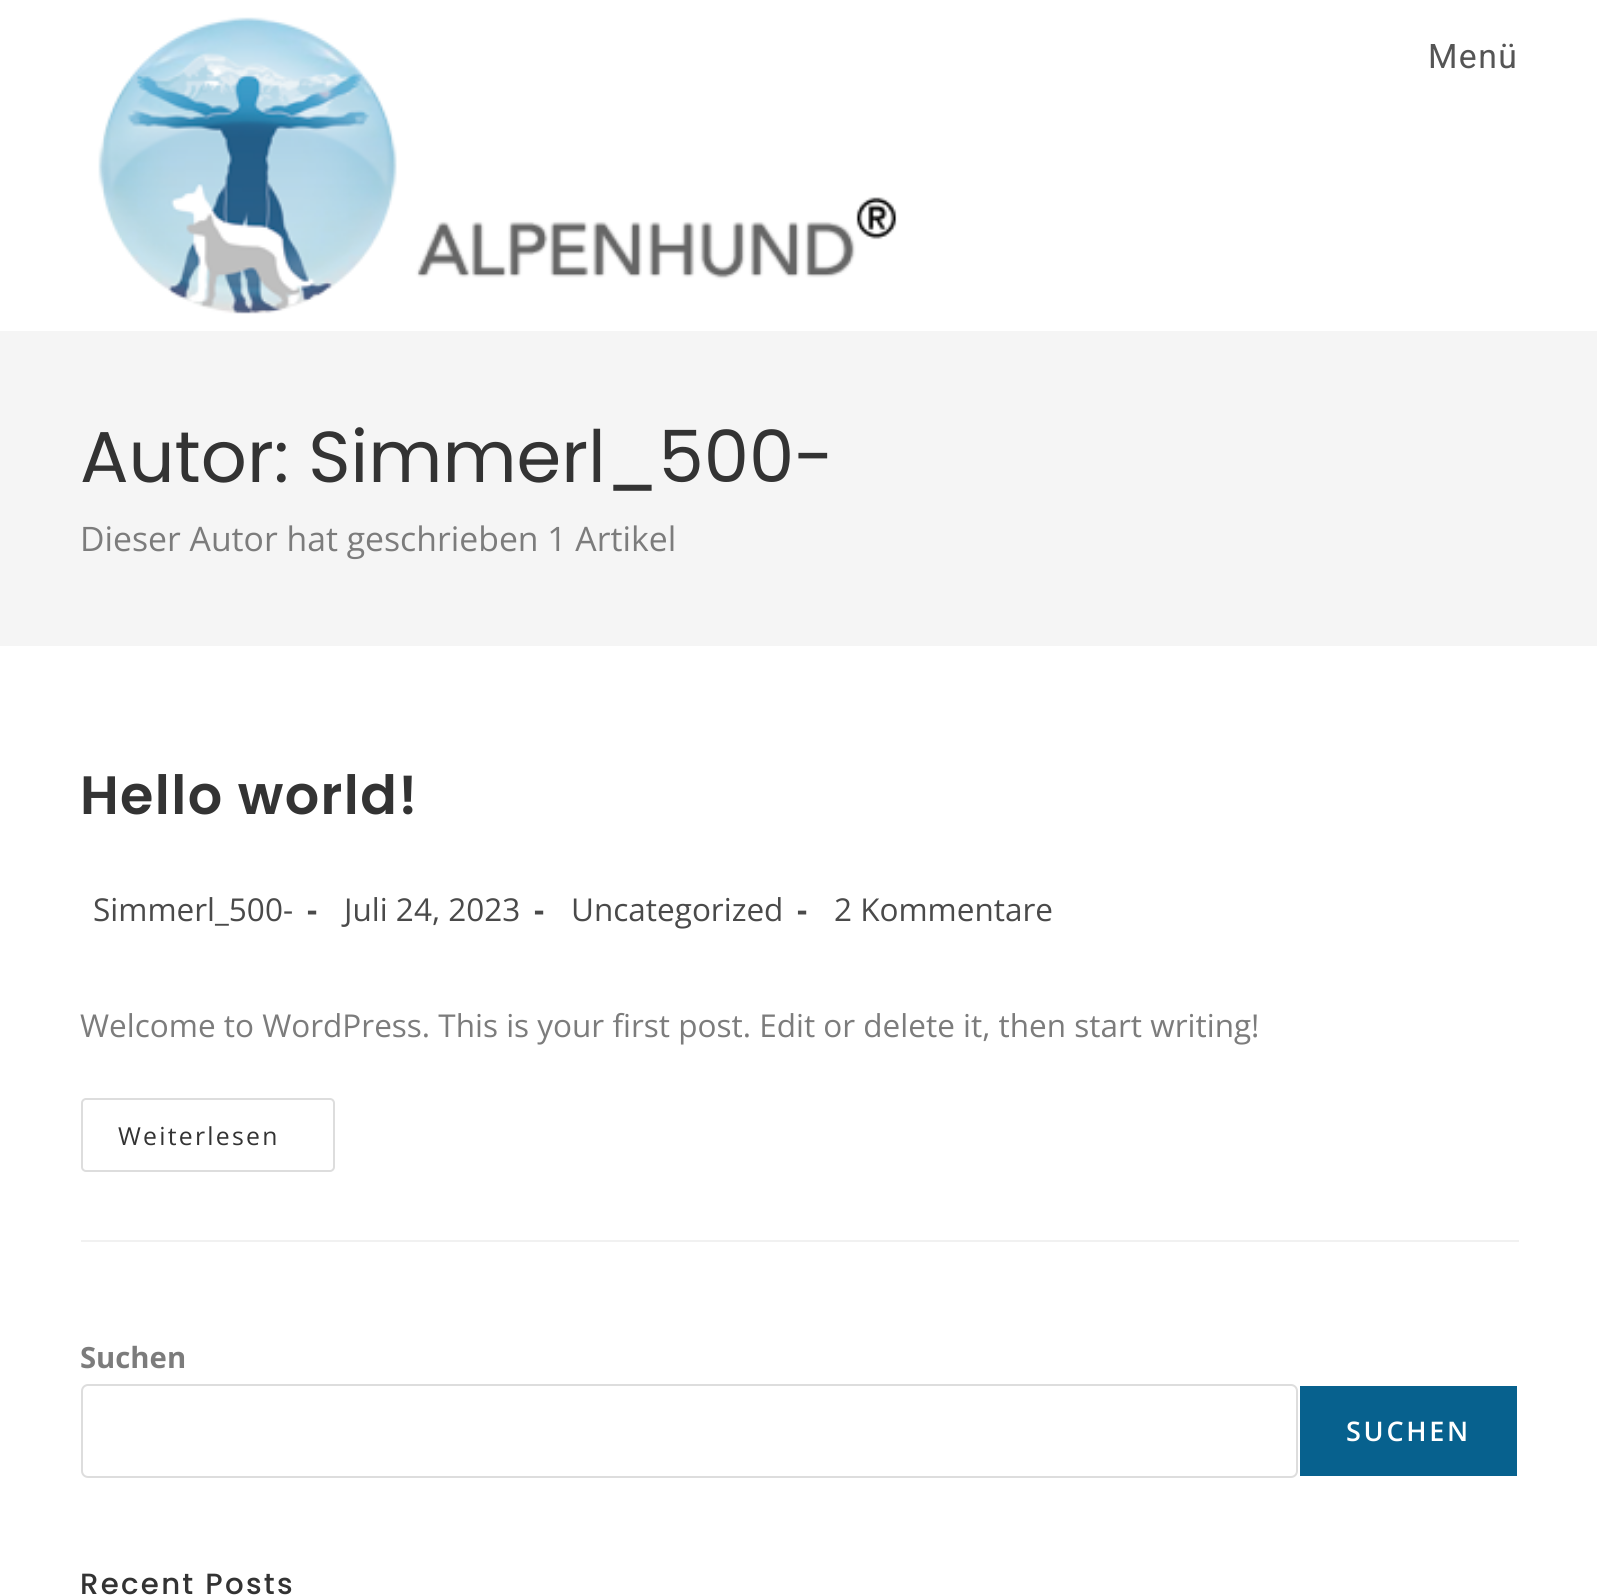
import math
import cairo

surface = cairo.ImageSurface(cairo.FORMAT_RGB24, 1597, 1595)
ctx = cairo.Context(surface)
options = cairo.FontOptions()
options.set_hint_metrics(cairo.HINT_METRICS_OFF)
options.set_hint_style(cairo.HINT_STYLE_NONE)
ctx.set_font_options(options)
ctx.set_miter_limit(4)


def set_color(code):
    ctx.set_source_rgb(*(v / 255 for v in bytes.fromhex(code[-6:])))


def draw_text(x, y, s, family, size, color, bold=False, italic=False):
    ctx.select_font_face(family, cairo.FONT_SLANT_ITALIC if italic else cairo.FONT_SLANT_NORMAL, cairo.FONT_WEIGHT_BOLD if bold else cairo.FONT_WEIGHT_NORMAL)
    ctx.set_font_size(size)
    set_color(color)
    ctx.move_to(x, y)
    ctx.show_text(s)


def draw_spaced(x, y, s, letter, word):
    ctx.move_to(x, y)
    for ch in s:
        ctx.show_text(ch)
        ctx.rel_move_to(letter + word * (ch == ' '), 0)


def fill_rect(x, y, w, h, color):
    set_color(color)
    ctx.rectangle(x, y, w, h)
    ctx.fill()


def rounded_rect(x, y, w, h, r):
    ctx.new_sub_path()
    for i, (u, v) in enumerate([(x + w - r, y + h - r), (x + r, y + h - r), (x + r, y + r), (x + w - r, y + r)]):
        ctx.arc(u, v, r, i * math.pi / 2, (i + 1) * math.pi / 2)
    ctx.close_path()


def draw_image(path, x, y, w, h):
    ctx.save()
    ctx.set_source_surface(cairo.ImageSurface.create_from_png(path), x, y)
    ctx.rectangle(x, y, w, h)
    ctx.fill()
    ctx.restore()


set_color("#ffffff")
ctx.paint()
draw_image("assets/img1.png", 98, 17, 799, 297)
ctx.select_font_face("Roboto")
ctx.set_font_size(33.75)
set_color("#555555")
draw_spaced(1428, 68, "Menü", 1.4, 0)
fill_rect(0, 331, 1597, 315, "#f5f5f5")
draw_text(80, 482, "Autor: Simmerl_500-", "Poppins", 72, "#333333")
draw_text(80, 551, "Dieser Autor hat geschrieben 1 Artikel", "Open Sans", 33.75, "#7c7c7c")
fill_rect(81, 1240, 1438, 2, "#f1f1f1")
ctx.select_font_face("Poppins SemiBold")
ctx.set_font_size(54)
set_color("#333333")
draw_spaced(80, 814, "Hello world!", 1.4, 0)
draw_text(93, 921, "Simmerl_500-", "Open Sans", 31.5, "#4a4a4a")
draw_text(307, 921, "-", "Open Sans", 31.5, "#4a4a4a", bold=True)
draw_text(344, 921, "Juli 24, 2023", "Open Sans", 31.5, "#4a4a4a")
draw_text(534, 921, "-", "Open Sans", 31.5, "#4a4a4a", bold=True)
draw_text(571, 921, "Uncategorized", "Open Sans", 31.5, "#4a4a4a")
draw_text(797, 921, "-", "Open Sans", 31.5, "#4a4a4a", bold=True)
draw_text(834, 921, "2 Kommentare", "Open Sans", 31.5, "#4a4a4a")
draw_text(80, 1037, "Welcome to WordPress. This is your first post. Edit or delete it, then start writing!", "Open Sans", 31.5, "#7c7c7c")
rounded_rect(82, 1099, 252, 72, 4)
set_color("#dddddd")
ctx.stroke()
ctx.set_font_size(24.75)
set_color("#333333")
draw_spaced(118, 1145, "Weiterlesen", 2.25, 0)
draw_text(80, 1368, "Suchen", "Open Sans", 29.25, "#7c7c7c", bold=True)
rounded_rect(82, 1385, 1215, 92, 6)
set_color("#dddddd")
ctx.stroke()
fill_rect(1300, 1386, 217, 90, "#07618e")
ctx.select_font_face("Open Sans SemiBold")
ctx.set_font_size(27)
set_color("#ffffff")
draw_spaced(1346, 1441, "SUCHEN", 2.75, 0)
ctx.select_font_face("Poppins Medium")
ctx.set_font_size(29.25)
set_color("#333333")
draw_spaced(80, 1594, "Recent Posts", 2.25, 0)
surface.write_to_png("output.png")
